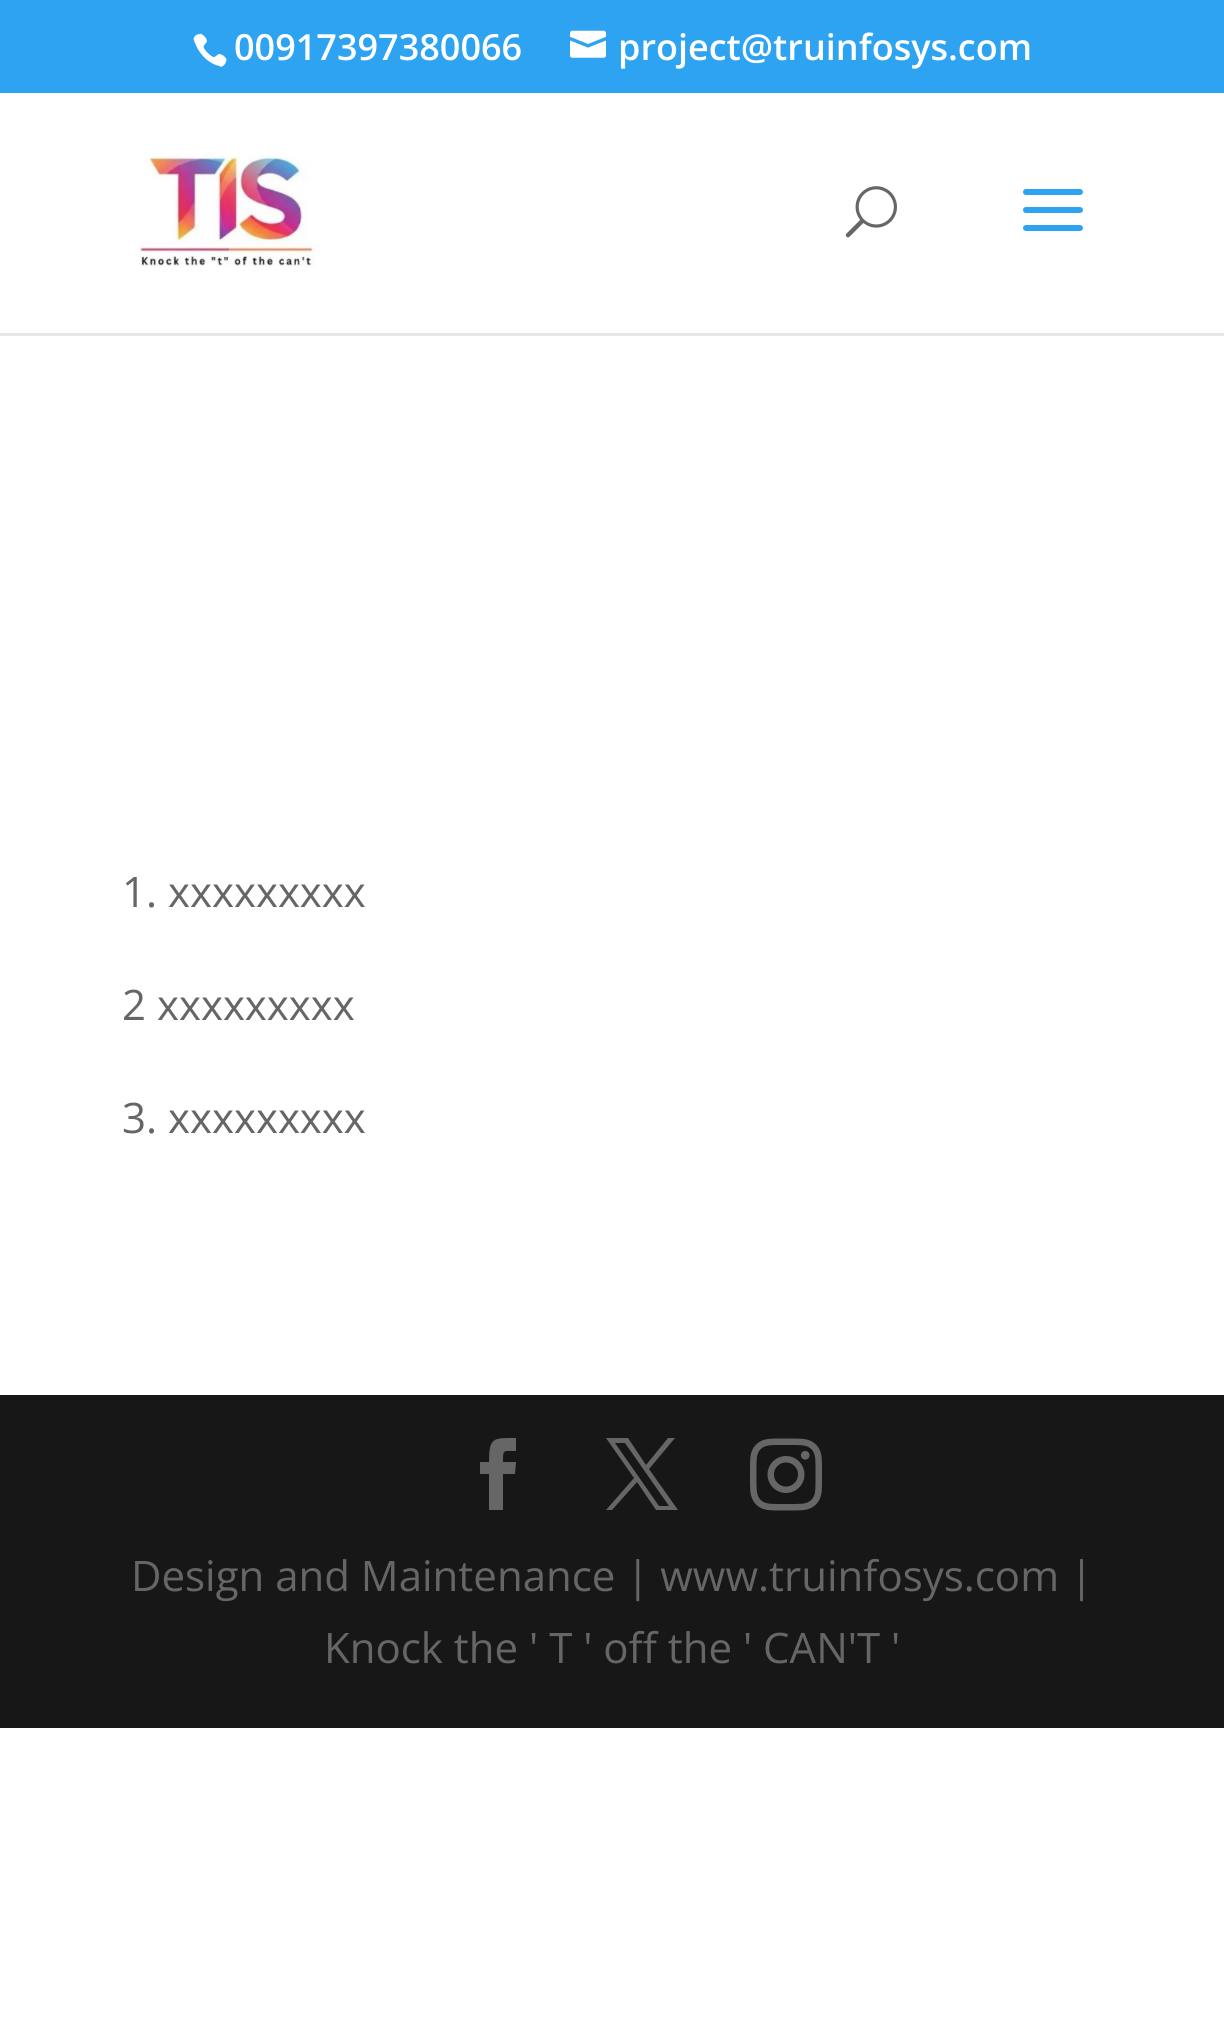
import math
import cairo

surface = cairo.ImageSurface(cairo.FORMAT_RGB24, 1224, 2040)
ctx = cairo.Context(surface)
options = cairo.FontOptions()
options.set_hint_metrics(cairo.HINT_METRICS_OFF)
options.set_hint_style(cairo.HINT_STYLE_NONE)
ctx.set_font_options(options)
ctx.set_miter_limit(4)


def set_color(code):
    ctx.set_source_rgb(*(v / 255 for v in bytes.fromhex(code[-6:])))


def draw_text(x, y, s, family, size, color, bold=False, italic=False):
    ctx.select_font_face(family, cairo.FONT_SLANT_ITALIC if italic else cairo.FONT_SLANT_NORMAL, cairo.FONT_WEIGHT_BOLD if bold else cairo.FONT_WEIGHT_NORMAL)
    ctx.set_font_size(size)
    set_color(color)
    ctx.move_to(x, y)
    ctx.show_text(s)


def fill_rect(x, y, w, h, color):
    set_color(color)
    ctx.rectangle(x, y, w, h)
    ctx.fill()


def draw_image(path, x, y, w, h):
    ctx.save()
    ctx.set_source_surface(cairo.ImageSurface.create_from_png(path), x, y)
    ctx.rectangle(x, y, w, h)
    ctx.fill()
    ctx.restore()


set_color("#ffffff")
ctx.paint()
fill_rect(0, 0, 1224, 93, "#2ea3f2")
draw_image("assets/img1.png", 193, 33, 34, 34)
draw_text(234, 60, "00917397380066", "Open Sans SemiBold", 36, "#ffffff")
draw_image("assets/img2.png", 570, 30, 36, 28)
draw_text(618, 60, "project@truinfosys.com", "Open Sans SemiBold", 36, "#ffffff")
fill_rect(0, 333, 1224, 3, "#e6e6e6")
draw_image("assets/img3.png", 139, 154, 182, 112)
draw_image("assets/img4.png", 845, 186, 52, 52)
draw_image("assets/img5.png", 1023, 189, 60, 42)
draw_text(122, 907, "1. xxxxxxxxx", "Open Sans", 42, "#666666")
draw_text(122, 1020, "2 xxxxxxxxx", "Open Sans", 42, "#666666")
draw_text(122, 1133, "3. xxxxxxxxx", "Open Sans", 42, "#666666")
fill_rect(0, 1395, 1224, 333, "#171717")
set_color("#666666")
ctx.new_path()
ctx.move_to(489, 1510)
ctx.line_to(503, 1510)
ctx.line_to(503, 1474)
ctx.line_to(515, 1474)
ctx.line_to(516, 1462)
ctx.line_to(503, 1462)
ctx.curve_to(503, 1449, 503, 1451, 516, 1451)
ctx.line_to(516, 1438)
ctx.curve_to(493, 1438, 489, 1437, 489, 1462)
ctx.line_to(480, 1462)
ctx.line_to(480, 1474)
ctx.line_to(489, 1474)
ctx.close_path()
ctx.fill()
ctx.new_path()
ctx.move_to(606, 1438)
ctx.line_to(634, 1478)
ctx.line_to(606, 1510)
ctx.line_to(612, 1510)
ctx.line_to(637, 1482)
ctx.line_to(656, 1510)
ctx.line_to(678, 1510)
ctx.line_to(649, 1469)
ctx.line_to(675, 1438)
ctx.line_to(668, 1438)
ctx.line_to(646, 1465)
ctx.line_to(628, 1438)
ctx.close_path()
ctx.move_to(615, 1443)
ctx.line_to(625, 1443)
ctx.line_to(669, 1506)
ctx.line_to(659, 1506)
ctx.close_path()
ctx.fill()
draw_image("assets/img6.png", 750, 1438, 72, 73)
draw_text(131, 1591, "Design and Maintenance | www.truinfosys.com |", "Open Sans", 42, "#666666")
draw_text(324, 1663, "Knock the ' T ' off the ' CAN'T '", "Open Sans", 42, "#666666")
surface.write_to_png("output.png")
